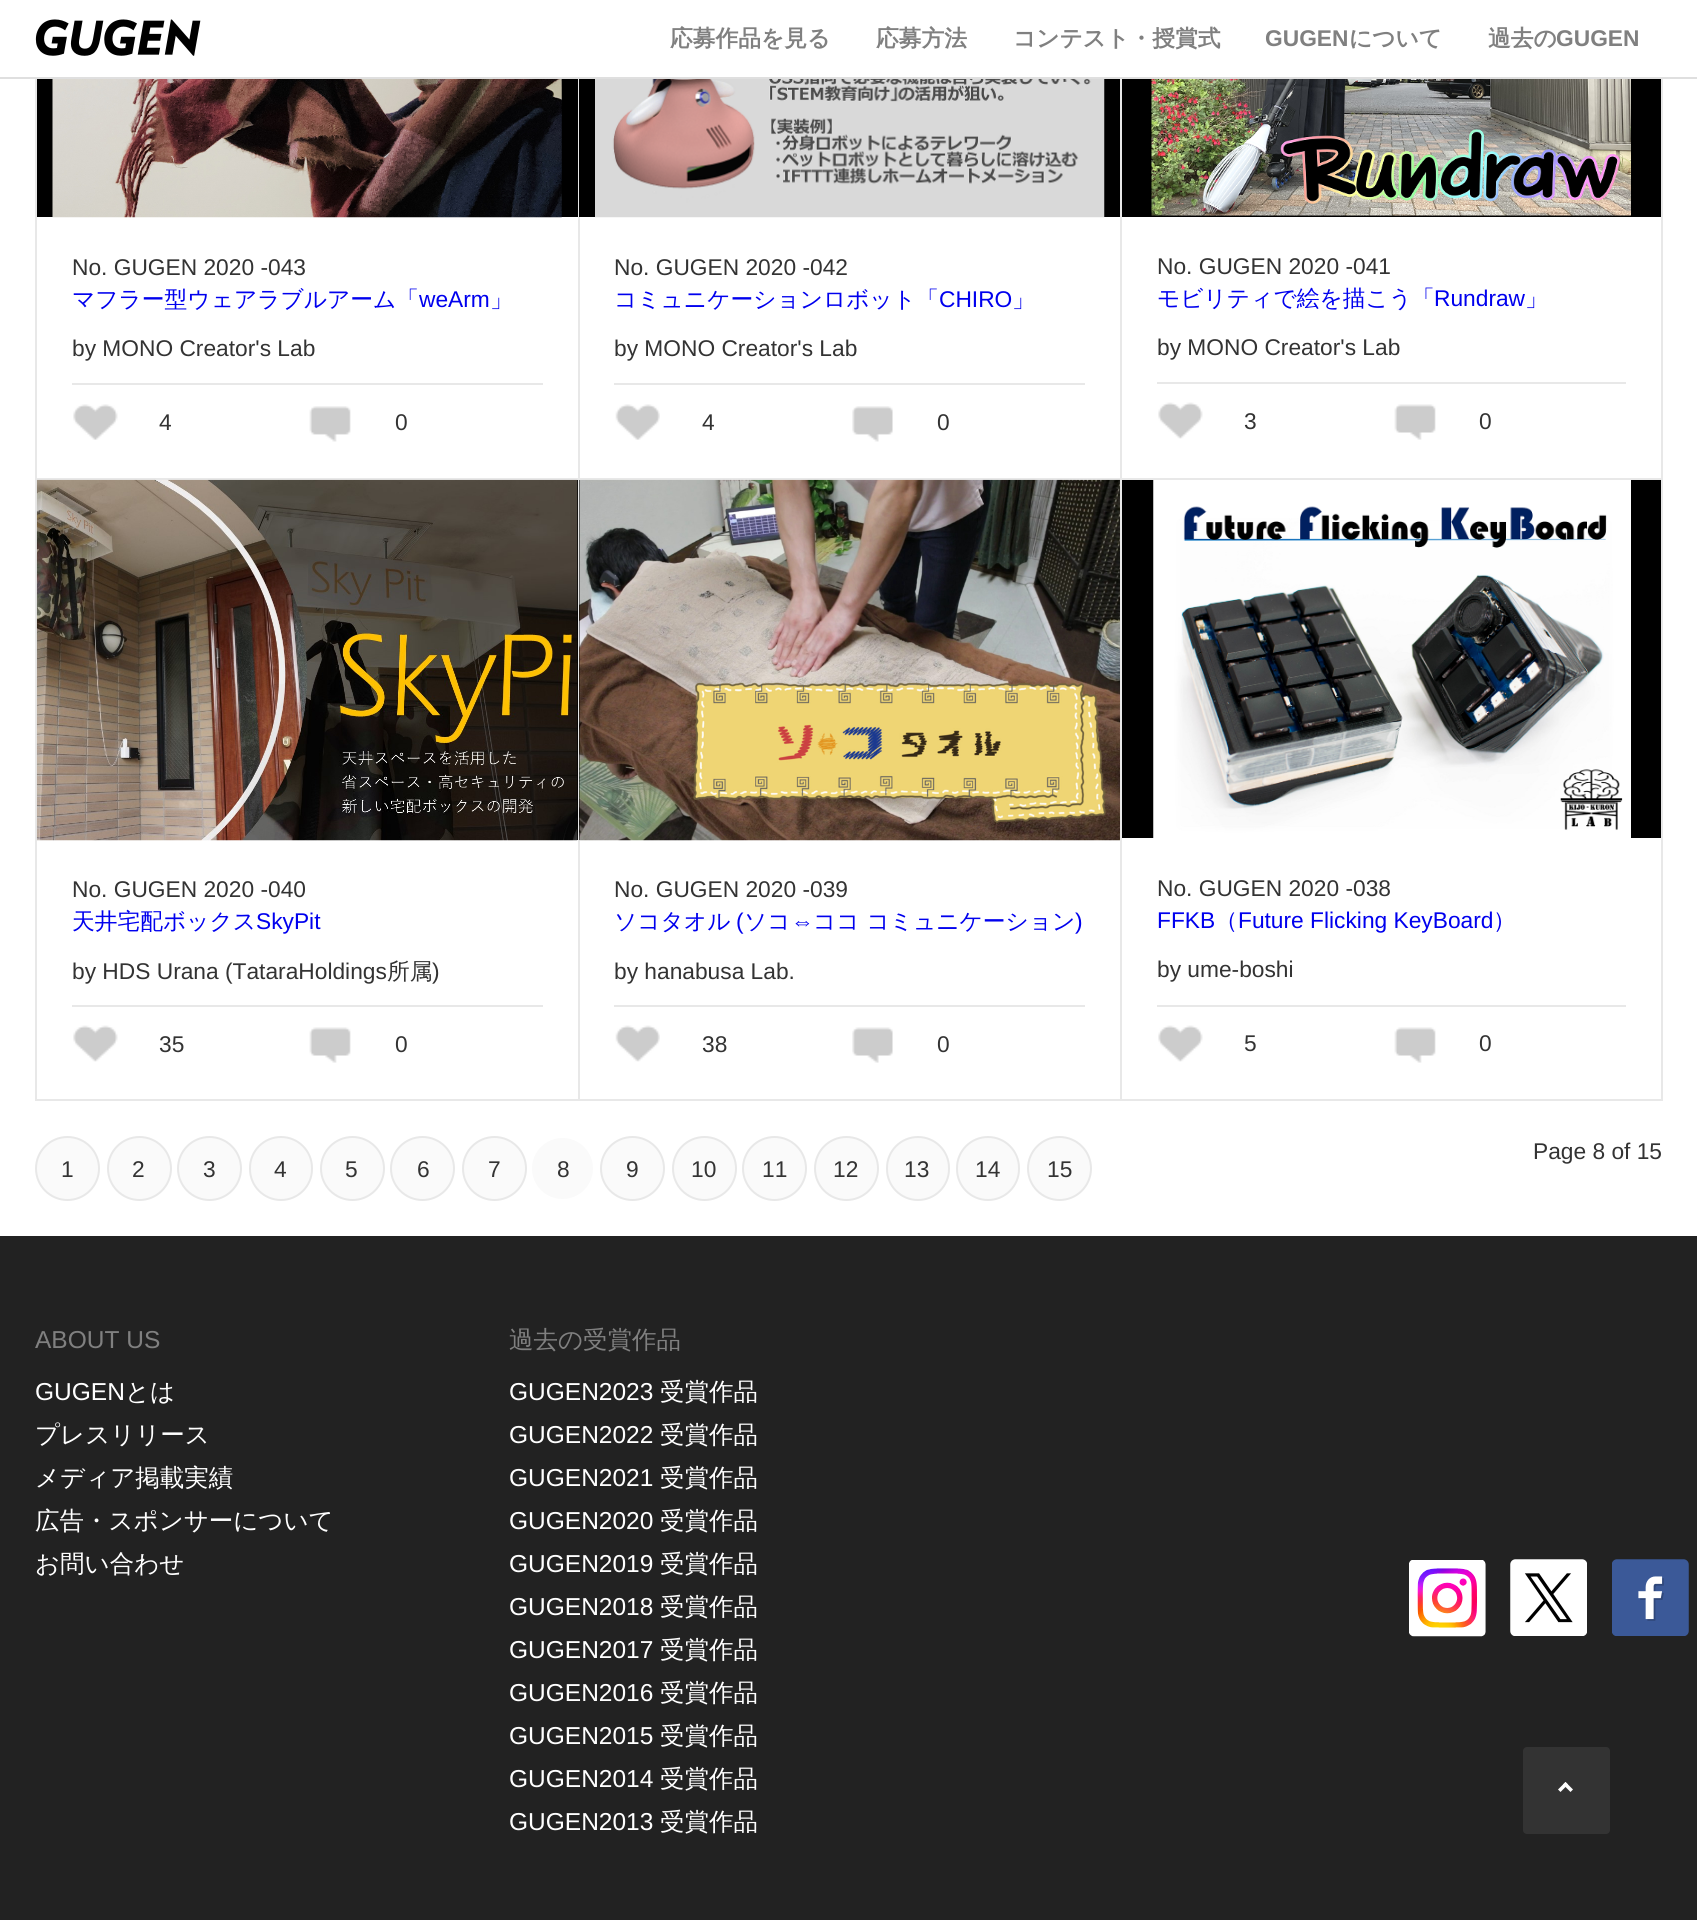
import math
import cairo

surface = cairo.ImageSurface(cairo.FORMAT_RGB24, 1697, 1920)
ctx = cairo.Context(surface)
options = cairo.FontOptions()
options.set_hint_metrics(cairo.HINT_METRICS_OFF)
options.set_hint_style(cairo.HINT_STYLE_NONE)
ctx.set_font_options(options)
ctx.set_miter_limit(4)


def set_color(code):
    ctx.set_source_rgb(*(v / 255 for v in bytes.fromhex(code[-6:])))


def draw_text(x, y, s, family, size, color, bold=False, italic=False):
    ctx.select_font_face(family, cairo.FONT_SLANT_ITALIC if italic else cairo.FONT_SLANT_NORMAL, cairo.FONT_WEIGHT_BOLD if bold else cairo.FONT_WEIGHT_NORMAL)
    ctx.set_font_size(size)
    set_color(color)
    ctx.move_to(x, y)
    ctx.show_text(s)


def fill_rect(x, y, w, h, color):
    set_color(color)
    ctx.rectangle(x, y, w, h)
    ctx.fill()


def rounded_rect(x, y, w, h, r):
    ctx.new_sub_path()
    for i, (u, v) in enumerate([(x + w - r, y + h - r), (x + r, y + h - r), (x + r, y + r), (x + w - r, y + r)]):
        ctx.arc(u, v, r, i * math.pi / 2, (i + 1) * math.pi / 2)
    ctx.close_path()


def draw_image(path, x, y, w, h):
    ctx.save()
    ctx.set_source_surface(cairo.ImageSurface.create_from_png(path), x, y)
    ctx.rectangle(x, y, w, h)
    ctx.fill()
    ctx.restore()


set_color("#ffffff")
ctx.paint()
fill_rect(0, 77, 1697, 2, "#dfdfdf")
draw_image("assets/img1.png", 35, 19, 166, 37)
draw_text(670, 46, "応募作品を見る", "WenQuanYi Zen Hei", 22.75, "#808080", bold=True)
draw_text(876, 46, "応募方法", "WenQuanYi Zen Hei", 22.75, "#808080", bold=True)
draw_text(1013, 46, "コンテスト・授賞式", "WenQuanYi Zen Hei", 22.75, "#808080", bold=True)
draw_text(1265, 46, "GUGEN", "Liberation Sans", 22.75, "#808080", bold=True)
draw_text(1349, 46, "について", "WenQuanYi Zen Hei", 22.75, "#808080", bold=True)
draw_text(1488, 46, "過去の", "WenQuanYi Zen Hei", 22.75, "#808080", bold=True)
draw_text(1556, 46, "GUGEN", "Liberation Sans", 22.75, "#808080", bold=True)
fill_rect(0, 1236, 1697, 684, "#222222")
set_color("#333333")
rounded_rect(1523, 1747, 87, 87, 4)
ctx.fill()
set_color("#ffffff")
ctx.new_path()
ctx.move_to(1558, 1789.5)
ctx.line_to(1565.5, 1782)
ctx.line_to(1568, 1784.5)
ctx.line_to(1560.5, 1792)
ctx.close_path()
ctx.fill()
ctx.new_path()
ctx.move_to(1563, 1784.5)
ctx.line_to(1565.5, 1782)
ctx.line_to(1573, 1789.5)
ctx.line_to(1570.5, 1792)
ctx.close_path()
ctx.fill()
fill_rect(35, 478, 1085, 2, "#e8e8e8")
fill_rect(35, 79, 2, 401, "#e8e8e8")
fill_rect(37, 79, 541, 138, "#000000")
draw_image("assets/img2.png", 52, 79, 510, 139)
draw_text(72, 275, "No. GUGEN 2020 -043", "Liberation Sans", 22.75, "#333333")
draw_text(72, 307, "マフラー型ウェアラブルアーム「", "WenQuanYi Zen Hei Medium", 22.75, "#0000ee")
draw_text(419, 307, "weArm", "Liberation Sans", 22.75, "#0000ee")
draw_text(490, 307, "」", "WenQuanYi Zen Hei Medium", 22.75, "#0000ee")
draw_text(72, 356, "by MONO Creator's Lab", "Liberation Sans", 22.75, "#333333")
fill_rect(72, 383, 471, 2, "#e8e8e8")
draw_image("assets/img3.png", 73, 404, 45, 36)
draw_text(159, 430, "4", "Liberation Sans", 22.75, "#333333")
draw_image("assets/img4.png", 309, 406, 42, 36)
draw_text(395, 430, "0", "Liberation Sans", 22.75, "#333333")
fill_rect(578, 79, 2, 401, "#e8e8e8")
fill_rect(579, 79, 541, 138, "#000000")
draw_image("assets/img5.png", 595, 79, 510, 139)
draw_text(614, 275, "No. GUGEN 2020 -042", "Liberation Sans", 22.75, "#333333")
draw_text(614, 307, "コミュニケーションロボット「", "WenQuanYi Zen Hei Medium", 22.75, "#0000ee")
draw_text(939, 307, "CHIRO", "Liberation Sans", 22.75, "#0000ee")
draw_text(1012, 307, "」", "WenQuanYi Zen Hei Medium", 22.75, "#0000ee")
draw_text(614, 356, "by MONO Creator's Lab", "Liberation Sans", 22.75, "#333333")
fill_rect(614, 383, 471, 2, "#e8e8e8")
draw_image("assets/img6.png", 615, 404, 45, 36)
draw_text(702, 430, "4", "Liberation Sans", 22.75, "#333333")
draw_image("assets/img7.png", 852, 406, 41, 36)
draw_text(937, 430, "0", "Liberation Sans", 22.75, "#333333")
fill_rect(1661, 79, 2, 1022, "#e8e8e8")
fill_rect(1120, 478, 543, 2, "#e8e8e8")
fill_rect(1120, 79, 2, 401, "#e8e8e8")
fill_rect(1122, 79, 539, 138, "#000000")
draw_image("assets/img8.png", 1151, 79, 480, 137)
draw_text(1157, 274, "No. GUGEN 2020 -041", "Liberation Sans", 22.75, "#333333")
draw_text(1157, 306, "モビリティで絵を描こう「", "WenQuanYi Zen Hei Medium", 22.75, "#0000ee")
draw_text(1434, 306, "Rundraw", "Liberation Sans", 22.75, "#0000ee")
draw_text(1525, 306, "」", "WenQuanYi Zen Hei Medium", 22.75, "#0000ee")
draw_text(1157, 355, "by MONO Creator's Lab", "Liberation Sans", 22.75, "#333333")
fill_rect(1157, 382, 469, 2, "#e8e8e8")
draw_image("assets/img9.png", 1158, 402, 45, 37)
draw_text(1244, 429, "3", "Liberation Sans", 22.75, "#333333")
draw_image("assets/img10.png", 1394, 404, 42, 36)
draw_text(1479, 429, "0", "Liberation Sans", 22.75, "#333333")
fill_rect(35, 1099, 1628, 2, "#e8e8e8")
fill_rect(35, 480, 2, 621, "#e8e8e8")
fill_rect(577, 480, 1, 360, "#000000")
draw_image("assets/img11.png", 36, 479, 542, 362)
draw_text(72, 897, "No. GUGEN 2020 -040", "Liberation Sans", 22.75, "#333333")
draw_text(72, 929, "天井宅配ボックス", "WenQuanYi Zen Hei Medium", 22.75, "#0000ee")
draw_text(256, 929, "SkyPit", "Liberation Sans", 22.75, "#0000ee")
draw_text(72, 979, "by HDS Urana (TataraHoldings", "Liberation Sans", 22.75, "#333333")
draw_text(387, 979, "所属", "WenQuanYi Zen Hei Medium", 22.75, "#333333")
draw_text(432, 979, ")", "Liberation Sans", 22.75, "#333333")
fill_rect(72, 1005, 471, 2, "#e8e8e8")
draw_image("assets/img9.png", 73, 1025, 45, 37)
draw_text(159, 1052, "35", "Liberation Sans", 22.75, "#333333")
draw_image("assets/img12.png", 309, 1027, 42, 36)
draw_text(395, 1052, "0", "Liberation Sans", 22.75, "#333333")
fill_rect(578, 480, 2, 621, "#e8e8e8")
fill_rect(579, 480, 1, 360, "#000000")
draw_image("assets/img13.png", 579, 479, 541, 362)
draw_text(614, 897, "No. GUGEN 2020 -039", "Liberation Sans", 22.75, "#333333")
draw_text(614, 929, "ソコタオル", "WenQuanYi Zen Hei Medium", 22.75, "#0000ee")
draw_text(736, 929, "(", "Liberation Sans", 22.75, "#0000ee")
draw_text(744, 929, "ソコ", "WenQuanYi Zen Hei Medium", 22.75, "#0000ee")
draw_text(791, 929, "⇔", "Liberation Sans", 22.75, "#0000ee")
draw_text(813, 929, "ココ コミュニケーション", "WenQuanYi Zen Hei Medium", 22.75, "#0000ee")
draw_text(1075, 929, ")", "Liberation Sans", 22.75, "#0000ee")
draw_text(614, 979, "by hanabusa Lab.", "Liberation Sans", 22.75, "#333333")
fill_rect(614, 1005, 471, 2, "#e8e8e8")
draw_image("assets/img14.png", 615, 1025, 45, 37)
draw_text(702, 1052, "38", "Liberation Sans", 22.75, "#333333")
draw_image("assets/img15.png", 852, 1027, 41, 36)
draw_text(937, 1052, "0", "Liberation Sans", 22.75, "#333333")
fill_rect(1120, 480, 2, 621, "#e8e8e8")
fill_rect(1122, 480, 539, 358, "#000000")
draw_image("assets/img16.png", 1153, 480, 478, 358)
draw_text(1157, 896, "No. GUGEN 2020 -038", "Liberation Sans", 22.75, "#333333")
draw_text(1157, 928, "FFKB", "Liberation Sans", 22.75, "#0000ee")
draw_text(1215, 928, "（", "WenQuanYi Zen Hei Medium", 22.75, "#0000ee")
draw_text(1238, 928, "Future Flicking KeyBoard", "Liberation Sans", 22.75, "#0000ee")
draw_text(1493, 928, "）", "WenQuanYi Zen Hei Medium", 22.75, "#0000ee")
draw_text(1157, 977, "by ume-boshi", "Liberation Sans", 22.75, "#333333")
fill_rect(1157, 1005, 469, 2, "#e8e8e8")
draw_image("assets/img9.png", 1158, 1025, 45, 37)
draw_text(1244, 1051, "5", "Liberation Sans", 22.75, "#333333")
draw_image("assets/img10.png", 1394, 1027, 42, 36)
draw_text(1479, 1051, "0", "Liberation Sans", 22.75, "#333333")
draw_text(1533, 1159, "Page 8 of 15", "Liberation Sans", 22.75, "#333333")
set_color("#fafafa")
ctx.new_path()
ctx.arc(67.5, 1168.5, 31.5, 0, 2 * math.pi)
ctx.fill_preserve()
set_color("#e8e8e8")
ctx.stroke()
draw_text(61, 1177, "1", "Liberation Sans", 22.75, "#333333")
set_color("#fafafa")
ctx.new_path()
ctx.arc(139.5, 1168.5, 31.5, 0, 2 * math.pi)
ctx.fill_preserve()
set_color("#e8e8e8")
ctx.stroke()
draw_text(132, 1177, "2", "Liberation Sans", 22.75, "#333333")
set_color("#fafafa")
ctx.new_path()
ctx.arc(209.5, 1168.5, 31.5, 0, 2 * math.pi)
ctx.fill_preserve()
set_color("#e8e8e8")
ctx.stroke()
draw_text(203, 1177, "3", "Liberation Sans", 22.75, "#333333")
set_color("#fafafa")
rounded_rect(250, 1137, 62, 63, 31)
ctx.fill_preserve()
set_color("#e8e8e8")
ctx.stroke()
draw_text(274, 1177, "4", "Liberation Sans", 22.75, "#333333")
set_color("#fafafa")
ctx.new_path()
ctx.arc(352.5, 1168.5, 31.5, 0, 2 * math.pi)
ctx.fill_preserve()
set_color("#e8e8e8")
ctx.stroke()
draw_text(345, 1177, "5", "Liberation Sans", 22.75, "#333333")
set_color("#fafafa")
ctx.new_path()
ctx.arc(422.5, 1168.5, 31.5, 0, 2 * math.pi)
ctx.fill_preserve()
set_color("#e8e8e8")
ctx.stroke()
draw_text(417, 1177, "6", "Liberation Sans", 22.75, "#333333")
set_color("#fafafa")
ctx.new_path()
ctx.arc(494.5, 1168.5, 31.5, 0, 2 * math.pi)
ctx.fill_preserve()
set_color("#e8e8e8")
ctx.stroke()
draw_text(488, 1177, "7", "Liberation Sans", 22.75, "#333333")
set_color("#fafafa")
ctx.new_path()
ctx.arc(562.5, 1168.5, 30.5, 0, 2 * math.pi)
ctx.fill()
draw_text(557, 1177, "8", "Liberation Sans", 22.75, "#333333")
set_color("#fafafa")
ctx.new_path()
ctx.arc(632.5, 1168.5, 31.5, 0, 2 * math.pi)
ctx.fill_preserve()
set_color("#e8e8e8")
ctx.stroke()
draw_text(626, 1177, "9", "Liberation Sans", 22.75, "#333333")
set_color("#fafafa")
ctx.new_path()
ctx.arc(704.5, 1168.5, 31.5, 0, 2 * math.pi)
ctx.fill_preserve()
set_color("#e8e8e8")
ctx.stroke()
draw_text(691, 1177, "10", "Liberation Sans", 22.75, "#333333")
set_color("#fafafa")
ctx.new_path()
ctx.arc(774.5, 1168.5, 31.5, 0, 2 * math.pi)
ctx.fill_preserve()
set_color("#e8e8e8")
ctx.stroke()
draw_text(762, 1177, "11", "Liberation Sans", 22.75, "#333333")
set_color("#fafafa")
ctx.new_path()
ctx.arc(846.5, 1168.5, 31.5, 0, 2 * math.pi)
ctx.fill_preserve()
set_color("#e8e8e8")
ctx.stroke()
draw_text(833, 1177, "12", "Liberation Sans", 22.75, "#333333")
set_color("#fafafa")
rounded_rect(887, 1137, 62, 63, 31)
ctx.fill_preserve()
set_color("#e8e8e8")
ctx.stroke()
draw_text(904, 1177, "13", "Liberation Sans", 22.75, "#333333")
set_color("#fafafa")
rounded_rect(957, 1137, 62, 63, 31)
ctx.fill_preserve()
set_color("#e8e8e8")
ctx.stroke()
draw_text(975, 1177, "14", "Liberation Sans", 22.75, "#333333")
set_color("#fafafa")
ctx.new_path()
ctx.arc(1059.5, 1168.5, 31.5, 0, 2 * math.pi)
ctx.fill_preserve()
set_color("#e8e8e8")
ctx.stroke()
draw_text(1047, 1177, "15", "Liberation Sans", 22.75, "#333333")
draw_text(35, 1348, "ABOUT US", "Liberation Sans", 24.5, "#808080")
draw_text(35, 1400, "GUGEN", "Liberation Sans", 24.5, "#ffffff")
draw_text(125, 1400, "とは", "WenQuanYi Zen Hei Medium", 24.5, "#ffffff")
draw_text(35, 1443, "プレスリリース", "WenQuanYi Zen Hei Medium", 24.5, "#ffffff")
draw_text(35, 1486, "メディア掲載実績", "WenQuanYi Zen Hei Medium", 24.5, "#ffffff")
draw_text(35, 1529, "広告・スポンサーについて", "WenQuanYi Zen Hei Medium", 24.5, "#ffffff")
draw_text(35, 1572, "お問い合わせ", "WenQuanYi Zen Hei Medium", 24.5, "#ffffff")
draw_text(509, 1348, "過去の受賞作品", "WenQuanYi Zen Hei Medium", 24.5, "#808080")
draw_text(509, 1400, "GUGEN2023", "Liberation Sans", 24.5, "#ffffff")
draw_text(660, 1400, "受賞作品", "WenQuanYi Zen Hei Medium", 24.5, "#ffffff")
draw_text(509, 1443, "GUGEN2022", "Liberation Sans", 24.5, "#ffffff")
draw_text(660, 1443, "受賞作品", "WenQuanYi Zen Hei Medium", 24.5, "#ffffff")
draw_text(509, 1486, "GUGEN2021", "Liberation Sans", 24.5, "#ffffff")
draw_text(660, 1486, "受賞作品", "WenQuanYi Zen Hei Medium", 24.5, "#ffffff")
draw_text(509, 1529, "GUGEN2020", "Liberation Sans", 24.5, "#ffffff")
draw_text(660, 1529, "受賞作品", "WenQuanYi Zen Hei Medium", 24.5, "#ffffff")
draw_text(509, 1572, "GUGEN2019", "Liberation Sans", 24.5, "#ffffff")
draw_text(660, 1572, "受賞作品", "WenQuanYi Zen Hei Medium", 24.5, "#ffffff")
draw_text(509, 1615, "GUGEN2018", "Liberation Sans", 24.5, "#ffffff")
draw_text(660, 1615, "受賞作品", "WenQuanYi Zen Hei Medium", 24.5, "#ffffff")
draw_text(509, 1658, "GUGEN2017", "Liberation Sans", 24.5, "#ffffff")
draw_text(660, 1658, "受賞作品", "WenQuanYi Zen Hei Medium", 24.5, "#ffffff")
draw_text(509, 1701, "GUGEN2016", "Liberation Sans", 24.5, "#ffffff")
draw_text(660, 1701, "受賞作品", "WenQuanYi Zen Hei Medium", 24.5, "#ffffff")
draw_text(509, 1744, "GUGEN2015", "Liberation Sans", 24.5, "#ffffff")
draw_text(660, 1744, "受賞作品", "WenQuanYi Zen Hei Medium", 24.5, "#ffffff")
draw_text(509, 1787, "GUGEN2014", "Liberation Sans", 24.5, "#ffffff")
draw_text(660, 1787, "受賞作品", "WenQuanYi Zen Hei Medium", 24.5, "#ffffff")
draw_text(509, 1830, "GUGEN2013", "Liberation Sans", 24.5, "#ffffff")
draw_text(660, 1830, "受賞作品", "WenQuanYi Zen Hei Medium", 24.5, "#ffffff")
draw_image("assets/img17.png", 1409, 1560, 77, 77)
draw_image("assets/img18.png", 1510, 1559, 77, 77)
draw_image("assets/img19.png", 1612, 1559, 77, 77)
surface.write_to_png("output.png")
